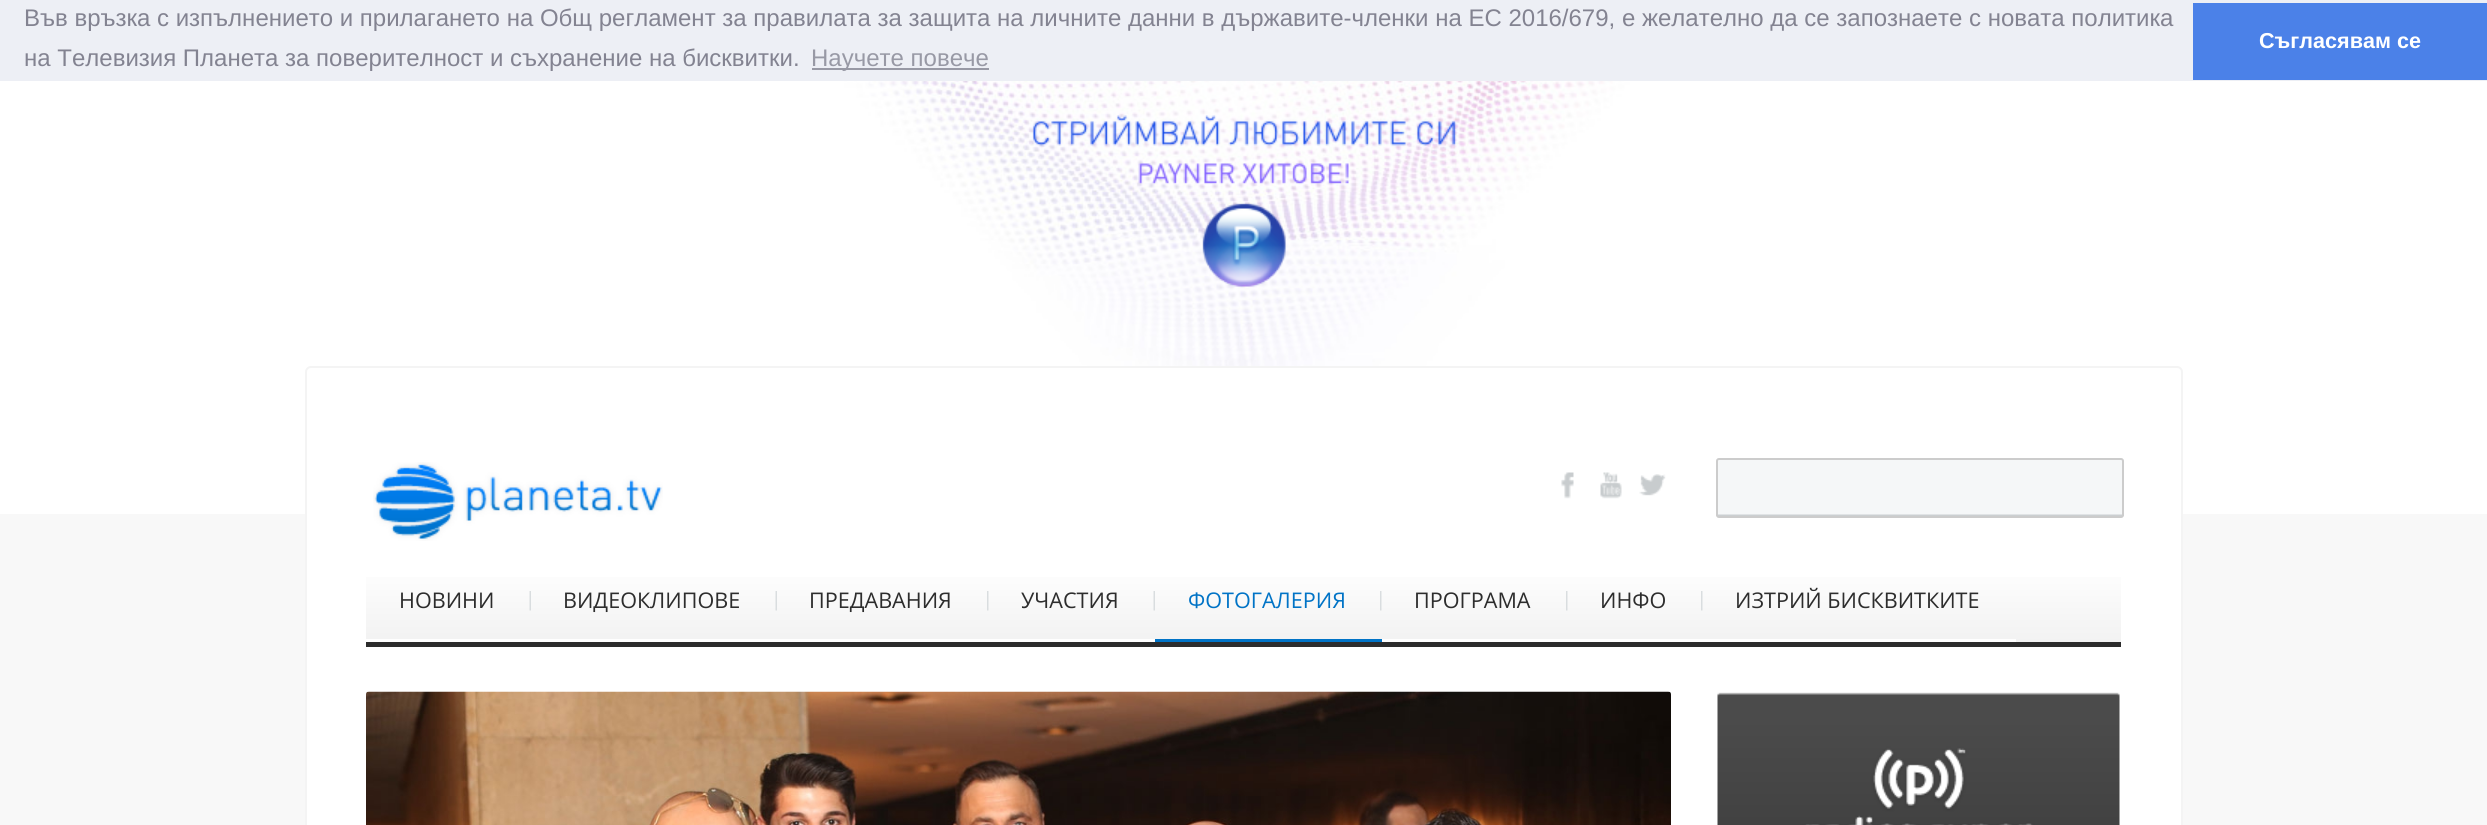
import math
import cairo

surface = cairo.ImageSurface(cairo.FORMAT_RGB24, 2487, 825)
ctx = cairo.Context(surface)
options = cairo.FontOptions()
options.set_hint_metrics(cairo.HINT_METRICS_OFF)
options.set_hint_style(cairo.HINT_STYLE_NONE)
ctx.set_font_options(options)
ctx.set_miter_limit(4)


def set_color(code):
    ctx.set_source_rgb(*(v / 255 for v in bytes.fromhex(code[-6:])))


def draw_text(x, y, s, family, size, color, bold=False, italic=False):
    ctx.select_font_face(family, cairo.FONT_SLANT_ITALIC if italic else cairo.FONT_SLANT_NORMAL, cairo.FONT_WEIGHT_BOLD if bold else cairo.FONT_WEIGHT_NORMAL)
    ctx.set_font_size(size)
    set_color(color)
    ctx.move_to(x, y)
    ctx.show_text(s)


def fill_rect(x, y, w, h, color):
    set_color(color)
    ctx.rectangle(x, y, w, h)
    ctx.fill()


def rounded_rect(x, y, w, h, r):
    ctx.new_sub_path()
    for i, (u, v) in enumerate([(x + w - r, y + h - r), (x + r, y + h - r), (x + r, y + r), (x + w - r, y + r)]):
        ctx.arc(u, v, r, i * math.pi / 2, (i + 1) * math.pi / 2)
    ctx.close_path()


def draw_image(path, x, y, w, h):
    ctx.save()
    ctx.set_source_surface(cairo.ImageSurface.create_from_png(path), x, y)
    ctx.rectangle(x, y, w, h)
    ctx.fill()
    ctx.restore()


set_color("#f8f8f8")
ctx.paint()
draw_image("assets/img1.png", 0, 81, 2487, 433)
fill_rect(0, 0, 2487, 81, "#edeff5")
draw_text(24, 26, "Във връзка с изпълнението и прилагането на Общ регламент за правилата за защита на личните данни в държавите-членки на ЕС 2016/679, е желателно да се запознаете с новата политика", "Liberation Sans", 24, "#838391")
draw_text(24, 66, "на Телевизия Планета за поверителност и съхранение на бисквитки.", "Liberation Sans", 24, "#838391")
fill_rect(812, 68, 177, 2, "#9899a5")
draw_text(811, 66, "Научете повече", "Liberation Sans", 24, "#9899a5")
fill_rect(2193, 3, 294, 77, "#4b81e8")
draw_text(2259, 48, "Съгласявам се", "Liberation Sans", 21.6, "#ffffff", bold=True)
draw_image("assets/img2.png", 1032, 115, 425, 172)
rounded_rect(306, 367, 1876, 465, 5)
ctx.fill_preserve()
set_color("#f4f4f4")
ctx.stroke()
draw_image("assets/img3.png", 373, 462, 290, 79)
draw_image("assets/img4.png", 1561, 472, 13, 27)
draw_image("assets/img5.png", 1600, 472, 22, 27)
draw_image("assets/img6.png", 1639, 474, 27, 22)
set_color("#f5f7f8")
rounded_rect(1716, 458, 408, 60, 3)
ctx.fill()
draw_image("assets/img7.png", 1716, 514, 408, 2)
rounded_rect(1717, 459, 406, 58, 2)
set_color("#cccccc")
ctx.stroke()
gradient = cairo.LinearGradient(1244, 562, 1244, 642)
gradient.add_color_stop_rgba(0, 1, 1, 1, 1)
gradient.add_color_stop_rgba(1, 0.949, 0.949, 0.949, 1)
ctx.set_source(gradient)
ctx.rectangle(366, 577, 1755, 65)
ctx.fill()
fill_rect(366, 642, 1755, 5, "#2c2c2c")
draw_image("assets/img8.png", 529, 591, 2, 20)
fill_rect(366, 639, 789, 3, "#ffffff")
draw_text(399, 608, "НОВИНИ", "Open Sans", 21.6, "#2d2d2d")
draw_image("assets/img8.png", 775, 591, 2, 20)
draw_text(563, 608, "ВИДЕОКЛИПОВЕ", "Open Sans", 21.6, "#2d2d2d")
draw_image("assets/img9.png", 987, 591, 2, 20)
draw_text(809, 608, "ПРЕДАВАНИЯ", "Open Sans", 21.6, "#2d2d2d")
draw_image("assets/img8.png", 1153, 591, 2, 20)
draw_text(1021, 608, "УЧАСТИЯ", "Open Sans", 21.6, "#2d2d2d")
draw_image("assets/img9.png", 1380, 591, 2, 20)
fill_rect(1155, 639, 227, 3, "#0073c6")
draw_text(1188, 608, "ФОТОГАЛЕРИЯ", "Open Sans", 21.6, "#0073c6")
draw_image("assets/img9.png", 1566, 591, 2, 20)
fill_rect(1382, 639, 634, 3, "#ffffff")
draw_text(1414, 608, "ПРОГРАМА", "Open Sans", 21.6, "#2d2d2d")
draw_image("assets/img9.png", 1701, 591, 2, 20)
draw_text(1600, 608, "ИНФО", "Open Sans", 21.6, "#2d2d2d")
draw_text(1735, 608, "ИЗТРИЙ БИСКВИТКИТЕ", "Open Sans", 21.6, "#2d2d2d")
draw_image("assets/img10.png", 366, 691, 1305, 134)
draw_image("assets/img11.png", 1717, 692, 403, 133)
surface.write_to_png("output.png")
